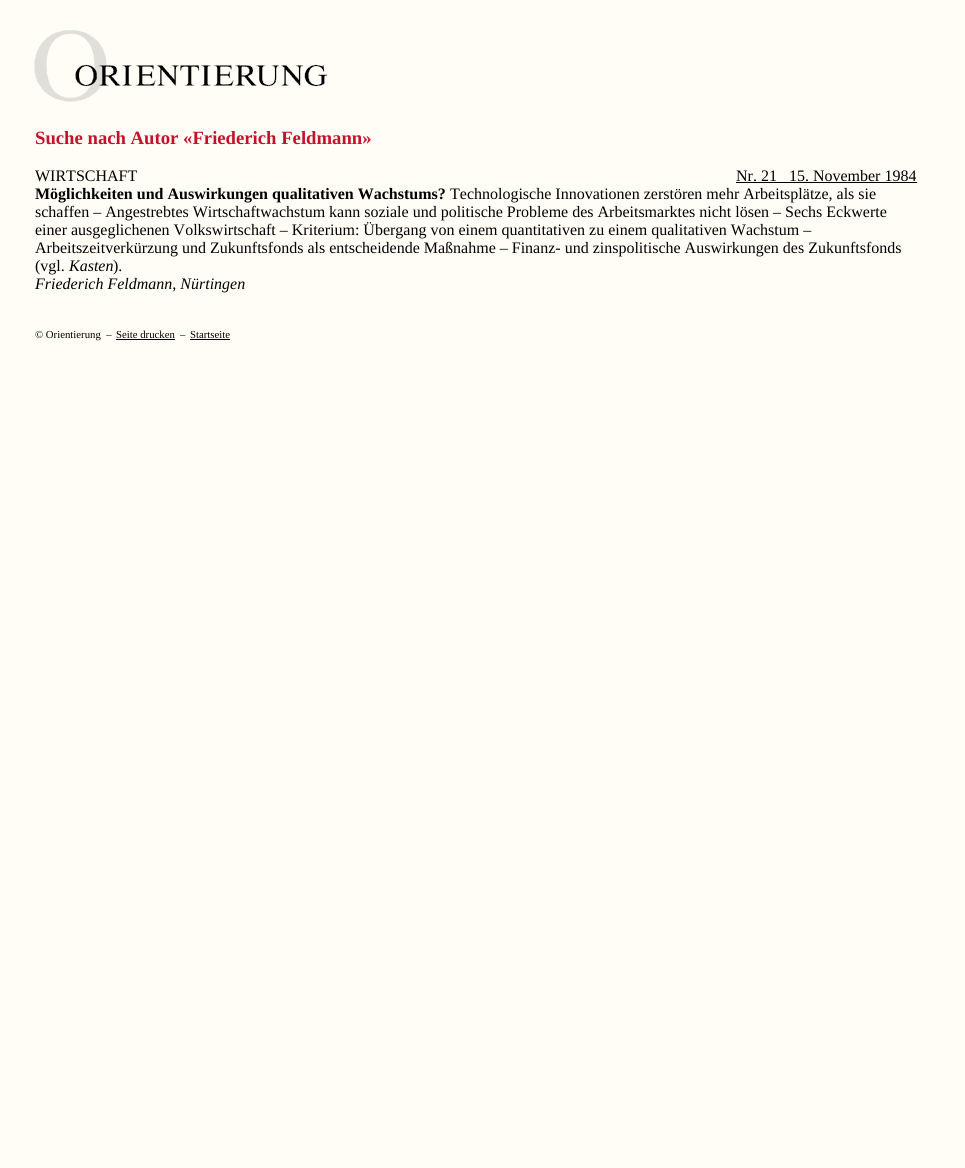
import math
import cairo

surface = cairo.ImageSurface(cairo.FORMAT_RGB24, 965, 1168)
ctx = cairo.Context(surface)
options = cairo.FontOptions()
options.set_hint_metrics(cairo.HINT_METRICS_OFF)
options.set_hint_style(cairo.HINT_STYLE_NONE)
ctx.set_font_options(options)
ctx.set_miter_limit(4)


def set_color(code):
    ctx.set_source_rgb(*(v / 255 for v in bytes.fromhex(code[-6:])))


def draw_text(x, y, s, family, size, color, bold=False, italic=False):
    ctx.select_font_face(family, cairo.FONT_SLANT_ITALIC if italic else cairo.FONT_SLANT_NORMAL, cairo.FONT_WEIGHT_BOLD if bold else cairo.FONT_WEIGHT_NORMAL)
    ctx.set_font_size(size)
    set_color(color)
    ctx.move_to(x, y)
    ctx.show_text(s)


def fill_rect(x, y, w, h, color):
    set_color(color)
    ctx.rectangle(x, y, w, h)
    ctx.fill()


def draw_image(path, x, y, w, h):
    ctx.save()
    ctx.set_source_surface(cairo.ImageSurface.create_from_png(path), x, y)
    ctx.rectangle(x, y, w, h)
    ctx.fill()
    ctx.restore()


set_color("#fffdf6")
ctx.paint()
draw_image("assets/img1.png", 34, 30, 294, 72)
draw_text(35, 144, "Suche nach Autor «Friederich Feldmann»", "Liberation Serif", 18.7, "#c6112b", bold=True)
draw_text(35, 181, "WIRTSCHAFT", "Liberation Serif", 16, "#000000")
draw_text(736, 181, "Nr. 21   15. November 1984", "Liberation Serif", 16, "#000000")
fill_rect(736, 182, 181, 1, "#000000")
draw_text(35, 199, "Möglichkeiten und Auswirkungen qualitativen Wachstums?", "Liberation Serif", 16, "#000000", bold=True)
draw_text(450, 199, "Technologische Innovationen zerstören mehr Arbeitsplätze, als sie", "Liberation Serif", 16, "#000000")
draw_text(35, 217, "schaffen – Angestrebtes Wirtschaftwachstum kann soziale und politische Probleme des Arbeitsmarktes nicht lösen – Sechs Eckwerte", "Liberation Serif", 16, "#000000")
draw_text(35, 235, "einer ausgeglichenen Volkswirtschaft – Kriterium: Übergang von einem quantitativen zu einem qualitativen Wachstum –", "Liberation Serif", 16, "#000000")
draw_text(35, 253, "Arbeitszeitverkürzung und Zukunftsfonds als entscheidende Maßnahme – Finanz- und zinspolitische Auswirkungen des Zukunftsfonds", "Liberation Serif", 16, "#000000")
draw_text(35, 271, "(vgl.", "Liberation Serif", 16, "#000000")
draw_text(69, 271, "Kasten", "Liberation Serif", 16, "#000000", italic=True)
draw_text(113, 271, ").", "Liberation Serif", 16, "#000000")
draw_text(35, 289, "Friederich Feldmann, Nürtingen", "Liberation Serif", 16, "#000000", italic=True)
draw_text(35, 338, "© Orientierung  –", "Liberation Serif", 10.75, "#000000")
draw_text(116, 338, "Seite drucken", "Liberation Serif", 10.75, "#000000")
fill_rect(116, 339, 59, 1, "#000000")
draw_text(180, 338, "–", "Liberation Serif", 10.75, "#000000")
draw_text(190, 338, "Startseite", "Liberation Serif", 10.75, "#000000")
fill_rect(190, 339, 40, 1, "#000000")
surface.write_to_png("output.png")
